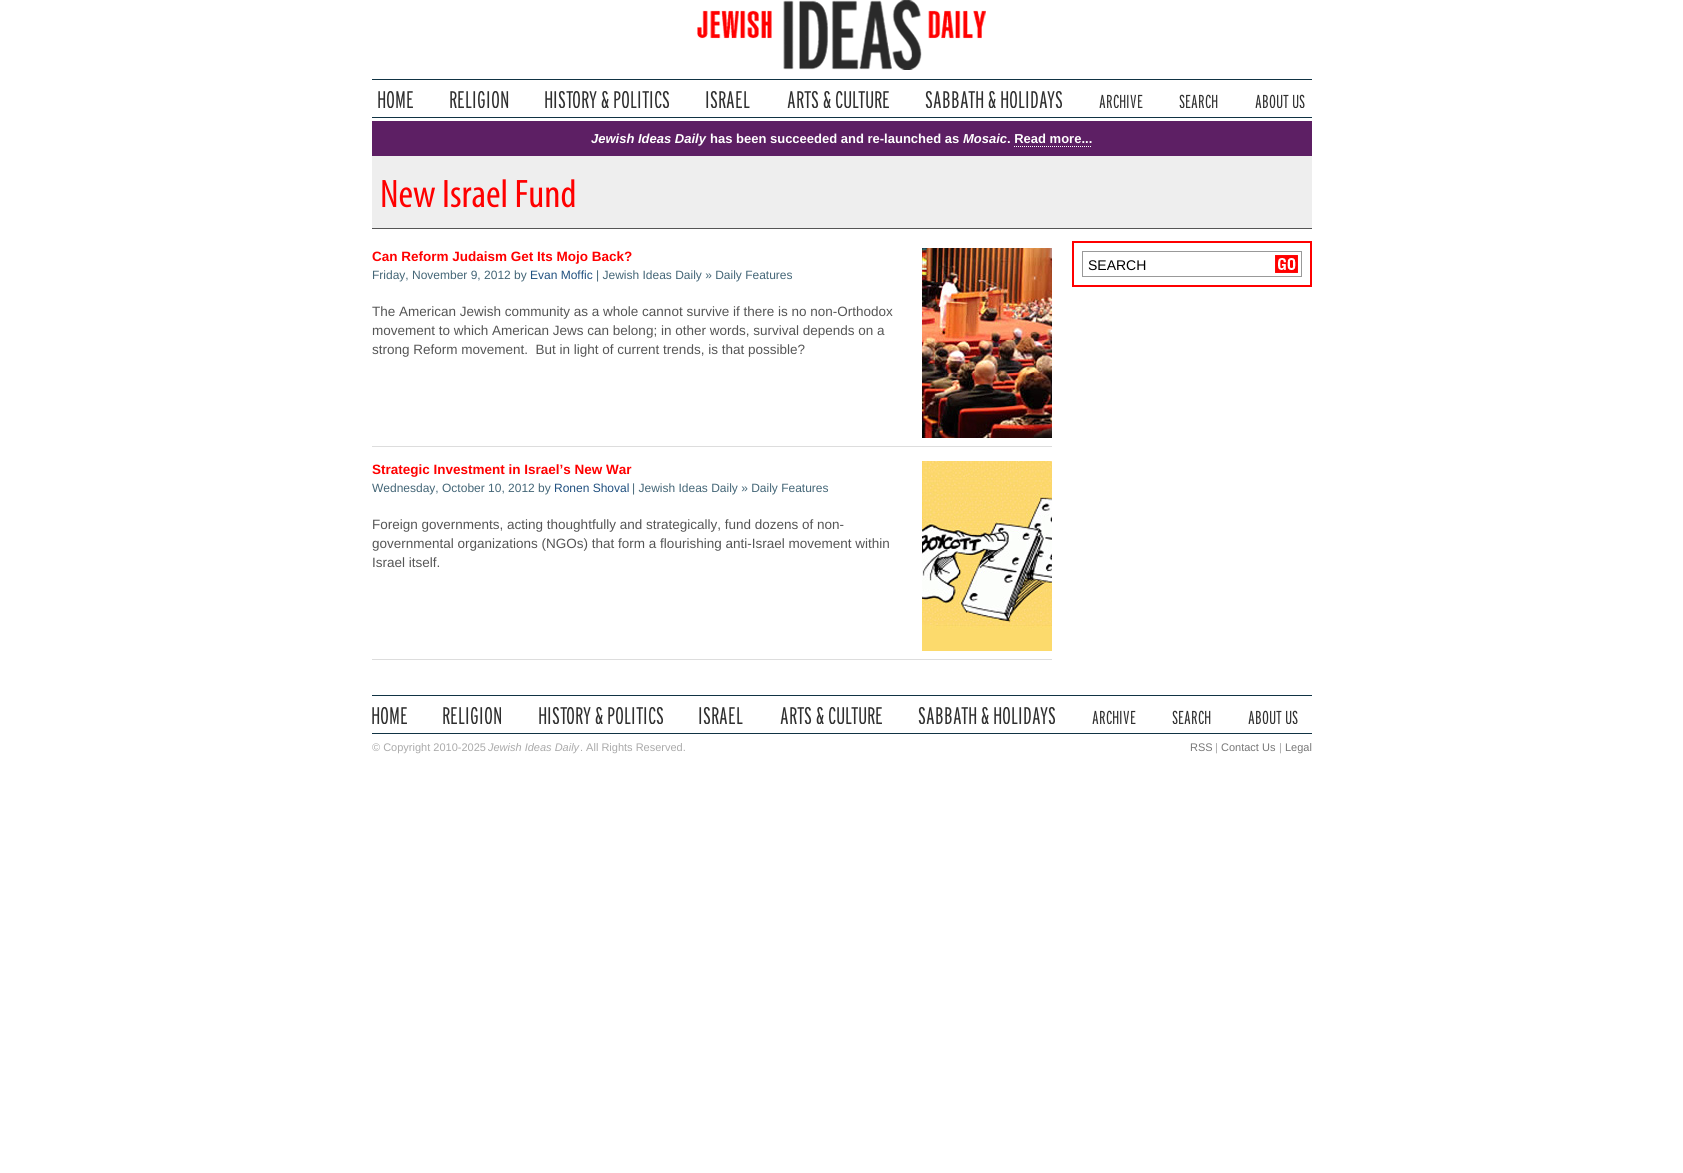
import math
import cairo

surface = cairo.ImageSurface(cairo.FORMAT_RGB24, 1683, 1173)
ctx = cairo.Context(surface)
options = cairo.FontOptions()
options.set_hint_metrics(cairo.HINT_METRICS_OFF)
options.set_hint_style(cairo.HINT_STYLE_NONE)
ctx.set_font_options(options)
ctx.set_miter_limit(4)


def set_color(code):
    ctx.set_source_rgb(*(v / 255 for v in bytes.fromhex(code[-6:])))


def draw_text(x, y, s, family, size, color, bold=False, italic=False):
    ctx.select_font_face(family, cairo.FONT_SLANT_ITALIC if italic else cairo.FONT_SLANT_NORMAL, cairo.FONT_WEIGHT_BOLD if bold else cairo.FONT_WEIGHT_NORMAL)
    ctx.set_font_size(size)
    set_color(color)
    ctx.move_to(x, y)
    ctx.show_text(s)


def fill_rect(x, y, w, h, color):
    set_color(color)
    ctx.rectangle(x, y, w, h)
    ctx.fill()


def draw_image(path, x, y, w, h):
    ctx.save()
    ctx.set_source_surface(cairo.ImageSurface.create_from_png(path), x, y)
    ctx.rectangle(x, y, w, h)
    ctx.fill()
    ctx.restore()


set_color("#ffffff")
ctx.paint()
draw_image("assets/img1.png", 697, 0, 289, 70)
fill_rect(372, 79, 940, 1, "#113344")
draw_image("assets/img2.png", 378, 91, 35, 17)
draw_image("assets/img3.png", 450, 91, 59, 17)
draw_image("assets/img4.png", 545, 91, 124, 17)
draw_image("assets/img5.png", 706, 91, 44, 17)
draw_image("assets/img6.png", 787, 91, 102, 17)
draw_image("assets/img7.png", 925, 91, 137, 17)
draw_image("assets/img8.png", 1099, 94, 44, 14)
draw_image("assets/img9.png", 1179, 94, 39, 14)
draw_image("assets/img10.png", 1255, 94, 50, 14)
fill_rect(372, 117, 940, 1, "#113344")
fill_rect(372, 121, 940, 35, "#5d1f64")
draw_text(591, 143, "Jewish Ideas Daily", "Liberation Sans", 13, "#ffffff", bold=True, italic=True)
draw_text(710, 143, "has been succeeded and re-launched as", "Liberation Sans", 13, "#ffffff", bold=True)
draw_text(963, 143, "Mosaic", "Liberation Sans", 13, "#ffffff", bold=True, italic=True)
draw_text(1007, 143, ". Read more...", "Liberation Sans", 13, "#ffffff", bold=True)
ctx.new_path()
ctx.move_to(1014, 146.5)
ctx.line_to(1092, 146.5)
ctx.set_line_width(1)
ctx.set_dash([1, 1])
ctx.stroke()
fill_rect(372, 156, 940, 72, "#eeeeee")
fill_rect(372, 228, 940, 1, "#555555")
draw_text(380, 207, "New Israel Fund", "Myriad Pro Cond", 40, "#ff0000")
draw_text(372, 261, "Can Reform Judaism Get Its Mojo Back?", "Liberation Sans", 13.5, "#ff0000", bold=True)
draw_image("assets/img11.png", 922, 248, 130, 190)
draw_text(372, 279, "Friday, November 9, 2012 by", "Liberation Sans", 12, "#446677")
draw_text(530, 279, "Evan Moffic", "Liberation Sans", 12, "#205080")
draw_text(596, 279, "| Jewish Ideas Daily » Daily Features", "Liberation Sans", 12, "#446677")
draw_text(372, 316, "The American Jewish community as a whole cannot survive if there is no non-Orthodox", "Liberation Sans", 13.5, "#555555")
draw_text(372, 335, "movement to which American Jews can belong; in other words, survival depends on a", "Liberation Sans", 13.5, "#555555")
draw_text(372, 354, "strong Reform movement.  But in light of current trends, is that possible?", "Liberation Sans", 13.5, "#555555")
fill_rect(372, 446, 680, 1, "#dddddd")
draw_text(372, 474, "Strategic Investment in Israel’s New War", "Liberation Sans", 13.5, "#ff0000", bold=True)
draw_image("assets/img12.png", 922, 461, 130, 190)
draw_text(372, 492, "Wednesday, October 10, 2012 by", "Liberation Sans", 12, "#446677")
draw_text(554, 492, "Ronen Shoval", "Liberation Sans", 12, "#205080")
draw_text(632, 492, "| Jewish Ideas Daily » Daily Features", "Liberation Sans", 12, "#446677")
draw_text(372, 529, "Foreign governments, acting thoughtfully and strategically, fund dozens of non-", "Liberation Sans", 13.5, "#555555")
draw_text(372, 548, "governmental organizations (NGOs) that form a flourishing anti-Israel movement within", "Liberation Sans", 13.5, "#555555")
draw_text(372, 567, "Israel itself.", "Liberation Sans", 13.5, "#555555")
fill_rect(372, 659, 680, 1, "#dddddd")
ctx.rectangle(1073, 242, 238, 44)
set_color("#ff0000")
ctx.set_line_width(2)
ctx.set_dash([])
ctx.stroke()
ctx.rectangle(1082.5, 251.5, 219, 25)
set_color("#999999")
ctx.set_line_width(1)
ctx.stroke()
draw_text(1088, 270, "SEARCH", "Liberation Sans", 14, "#000000")
draw_image("assets/img13.png", 1275, 255, 23, 18)
fill_rect(372, 695, 940, 1, "#113344")
draw_image("assets/img2.png", 372, 707, 35, 17)
draw_image("assets/img14.png", 443, 707, 58, 17)
draw_image("assets/img15.png", 539, 707, 124, 17)
draw_image("assets/img16.png", 699, 707, 44, 17)
draw_image("assets/img6.png", 780, 707, 102, 17)
draw_image("assets/img17.png", 918, 707, 137, 17)
draw_image("assets/img8.png", 1092, 710, 44, 14)
draw_image("assets/img9.png", 1172, 710, 39, 14)
draw_image("assets/img10.png", 1248, 710, 50, 14)
fill_rect(372, 733, 940, 1, "#113344")
draw_text(372, 751, "© Copyright 2010-2025", "Liberation Sans", 11, "#aaaaaa")
draw_text(488, 751, "Jewish Ideas Daily", "Liberation Sans", 11, "#aaaaaa", italic=True)
draw_text(580, 751, ". All Rights Reserved.", "Liberation Sans", 11, "#aaaaaa")
draw_text(1190, 751, "RSS", "Liberation Sans", 11, "#777777")
draw_text(1215, 751, "|", "Liberation Sans", 11, "#aaaaaa")
draw_text(1221, 751, "Contact Us", "Liberation Sans", 11, "#777777")
draw_text(1279, 751, "|", "Liberation Sans", 11, "#aaaaaa")
draw_text(1285, 751, "Legal", "Liberation Sans", 11, "#777777")
surface.write_to_png("output.png")
